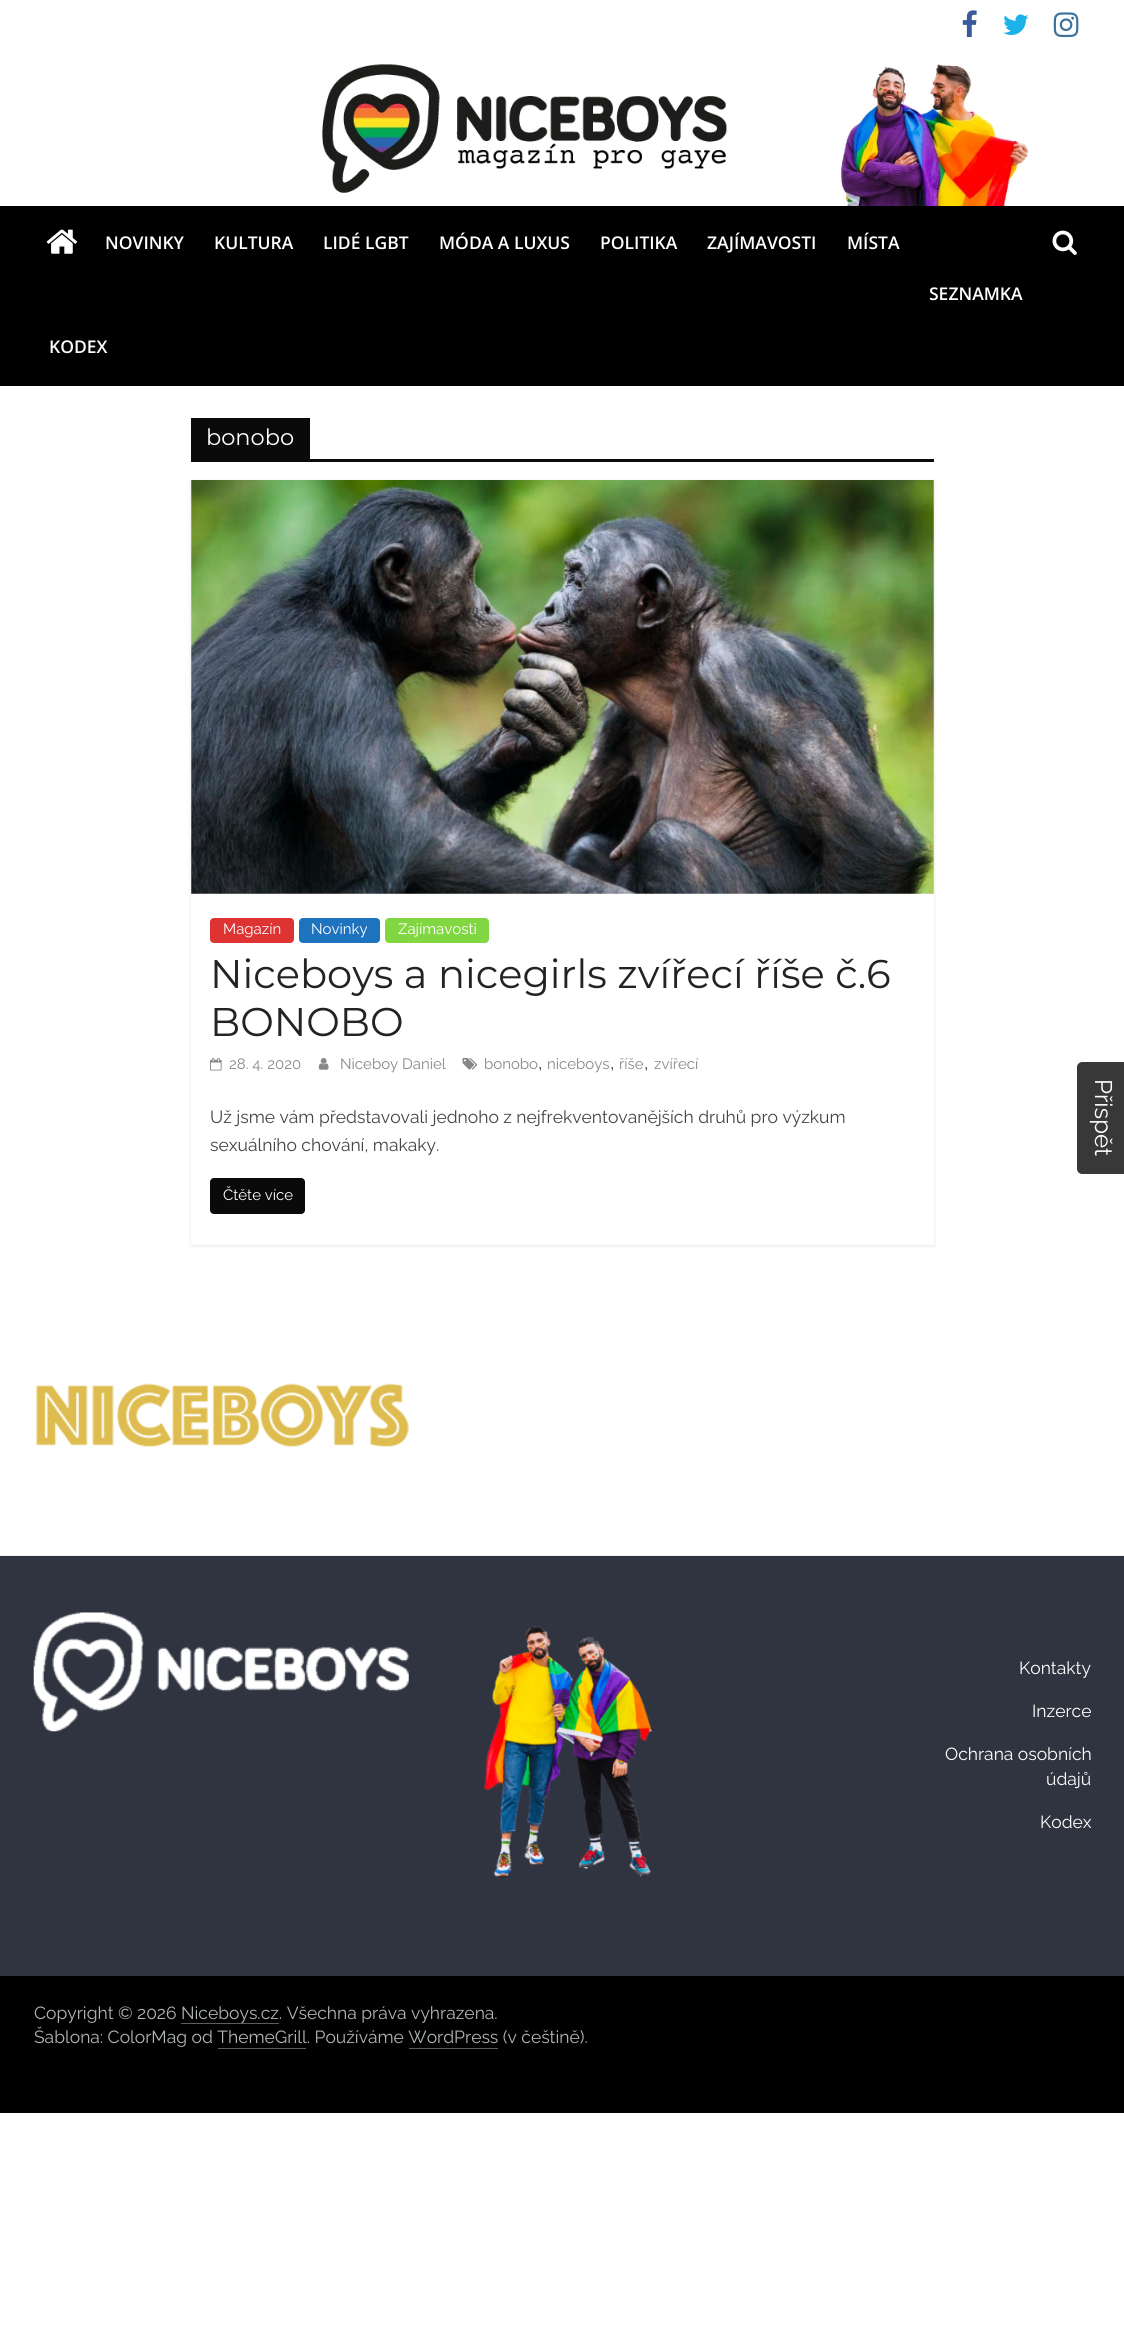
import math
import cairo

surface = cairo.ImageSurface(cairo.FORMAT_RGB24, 1124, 2347)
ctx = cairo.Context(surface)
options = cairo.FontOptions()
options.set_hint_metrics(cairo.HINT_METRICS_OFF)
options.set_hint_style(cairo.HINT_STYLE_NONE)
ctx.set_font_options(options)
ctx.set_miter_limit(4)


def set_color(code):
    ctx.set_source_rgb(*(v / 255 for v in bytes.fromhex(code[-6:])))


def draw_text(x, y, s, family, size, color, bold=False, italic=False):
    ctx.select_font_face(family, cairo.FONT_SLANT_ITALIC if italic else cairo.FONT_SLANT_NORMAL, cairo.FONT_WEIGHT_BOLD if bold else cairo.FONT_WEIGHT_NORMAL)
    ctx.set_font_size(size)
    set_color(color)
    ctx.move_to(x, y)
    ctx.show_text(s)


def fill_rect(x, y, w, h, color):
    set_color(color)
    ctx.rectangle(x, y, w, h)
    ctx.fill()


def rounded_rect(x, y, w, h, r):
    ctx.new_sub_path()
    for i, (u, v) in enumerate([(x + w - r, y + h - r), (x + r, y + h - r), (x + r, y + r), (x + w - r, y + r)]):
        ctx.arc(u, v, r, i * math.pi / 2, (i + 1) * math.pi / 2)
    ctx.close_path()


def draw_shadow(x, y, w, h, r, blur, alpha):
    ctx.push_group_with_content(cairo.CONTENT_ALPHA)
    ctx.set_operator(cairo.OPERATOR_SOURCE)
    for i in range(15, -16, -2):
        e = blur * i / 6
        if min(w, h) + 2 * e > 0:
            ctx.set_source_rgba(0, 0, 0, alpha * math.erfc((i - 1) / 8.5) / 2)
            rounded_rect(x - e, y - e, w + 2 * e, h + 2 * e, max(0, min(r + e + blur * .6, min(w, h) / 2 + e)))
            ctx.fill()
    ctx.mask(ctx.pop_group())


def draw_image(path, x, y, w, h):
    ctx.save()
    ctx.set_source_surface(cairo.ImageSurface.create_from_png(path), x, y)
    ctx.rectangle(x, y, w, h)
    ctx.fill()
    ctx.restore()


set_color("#ffffff")
ctx.paint()
draw_image("assets/img1.png", 962, 10, 15, 28)
draw_image("assets/img2.png", 1003, 14, 26, 21)
draw_image("assets/img3.png", 1053, 12, 26, 26)
draw_image("assets/img4.png", 0, 48, 1124, 158)
fill_rect(0, 206, 1124, 180, "#000000")
draw_image("assets/img5.png", 46, 229, 32, 25)
draw_image("assets/img6.png", 1052, 230, 25, 25)
draw_text(105, 249, "NOVINKY", "Open Sans SemiBold", 17.5, "#ffffff")
draw_text(214, 249, "KULTURA", "Open Sans SemiBold", 17.5, "#ffffff")
draw_text(323, 249, "LIDÉ LGBT", "Open Sans SemiBold", 17.5, "#ffffff")
draw_text(439, 249, "MÓDA A LUXUS", "Open Sans SemiBold", 17.5, "#ffffff")
draw_text(600, 249, "POLITIKA", "Open Sans SemiBold", 17.5, "#ffffff")
draw_text(707, 249, "ZAJÍMAVOSTI", "Open Sans SemiBold", 17.5, "#ffffff")
draw_text(847, 249, "MÍSTA", "Open Sans SemiBold", 17.5, "#ffffff")
draw_text(929, 300, "SEZNAMKA", "Open Sans SemiBold", 17.5, "#ffffff")
draw_text(49, 353, "KODEX", "Open Sans SemiBold", 17.5, "#ffffff")
fill_rect(191, 459, 743, 3, "#0a0a0a")
fill_rect(191, 418, 119, 41, "#0a0a0a")
draw_text(206, 445, "bonobo", "Montserrat", 22.5, "#ffffff")
ctx.save()
ctx.set_fill_rule(cairo.FILL_RULE_EVEN_ODD)
ctx.new_path()
ctx.move_to(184, 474)
ctx.line_to(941, 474)
ctx.line_to(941, 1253)
ctx.line_to(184, 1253)
ctx.close_path()
ctx.move_to(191, 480)
ctx.line_to(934, 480)
ctx.line_to(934, 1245)
ctx.line_to(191, 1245)
ctx.close_path()
ctx.clip()
set_color("#000000")
draw_shadow(191, 481, 743, 765, 0, 2, 0.1)
ctx.restore()
draw_image("assets/img7.png", 191, 480, 743, 414)
set_color("#dd3333")
rounded_rect(210, 918, 84, 25, 4)
ctx.fill()
draw_text(223, 934, "Magazín", "Raleway", 15, "#ffffff")
set_color("#1e73be")
rounded_rect(299, 918, 81, 25, 4)
ctx.fill()
draw_text(311, 934, "Novinky", "Raleway", 15, "#ffffff")
set_color("#81d742")
rounded_rect(385, 918, 104, 25, 4)
ctx.fill()
draw_text(398, 934, "Zajímavosti", "Raleway", 15, "#ffffff")
draw_text(210, 988, "Niceboys a nicegirls zvířecí říše č.6", "Montserrat", 40, "#232323")
draw_text(210, 1036, "BONOBO", "Montserrat", 40, "#232323")
draw_image("assets/img8.png", 210, 1058, 12, 13)
draw_text(229, 1069, "28. 4. 2020", "Raleway", 15, "#888888")
draw_image("assets/img9.png", 318, 1058, 11, 12)
draw_text(340, 1069, "Niceboy Daniel", "Raleway", 15, "#888888")
draw_image("assets/img10.png", 462, 1057, 15, 13)
draw_text(484, 1069, "bonobo", "Raleway", 15, "#888888")
draw_text(538, 1069, ",", "Raleway", 20, "#444444")
draw_text(547, 1069, "niceboys", "Raleway", 15, "#888888")
draw_text(610, 1069, ",", "Raleway", 20, "#444444")
draw_text(619, 1069, "říše", "Raleway", 15, "#888888")
draw_text(644, 1069, ",", "Raleway", 20, "#444444")
draw_text(654, 1069, "zvířecí", "Raleway", 15, "#888888")
draw_text(210, 1123, "Už jsme vám představovali jednoho z nejfrekventovanějších druhů pro výzkum", "Raleway", 17.5, "#444444")
draw_text(210, 1151, "sexuálního chování, makaky.", "Raleway", 17.5, "#444444")
set_color("#0a0a0a")
rounded_rect(210, 1178, 95, 36, 4)
ctx.fill()
draw_text(223, 1200, "Čtěte více", "Raleway", 15, "#ffffff")
draw_image("assets/img11.png", 36, 1383, 373, 64)
fill_rect(0, 1556, 1124, 420, "#303440")
fill_rect(0, 1555, 1124, 1, "#f2f2f2")
draw_image("assets/img12.png", 33, 1612, 376, 120)
draw_image("assets/img13.png", 484, 1626, 168, 252)
draw_text(1019, 1674, "Kontakty", "Raleway", 17.5, "#ffffff")
draw_text(1032, 1717, "Inzerce", "Raleway", 17.5, "#ffffff")
draw_text(945, 1760, "Ochrana osobních", "Raleway", 17.5, "#ffffff")
draw_text(1046, 1785, "údajů", "Raleway", 17.5, "#ffffff")
draw_text(1040, 1828, "Kodex", "Raleway", 17.5, "#ffffff")
fill_rect(0, 1976, 1124, 137, "#000000")
draw_text(34, 2019, "Copyright © 2026 Niceboys.cz. Všechna práva vyhrazena.", "Raleway", 17.5, "#b1b6b6")
fill_rect(181, 2023, 98, 1, "#5a5d62")
draw_text(34, 2043, "Šablona: ColorMag od ThemeGrill. Používáme WordPress (v češtině).", "Raleway", 17.5, "#b1b6b6")
fill_rect(218, 2048, 88, 1, "#5a5d62")
fill_rect(409, 2048, 89, 1, "#5a5d62")
set_color("#383838")
ctx.new_path()
ctx.move_to(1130, 1067)
ctx.line_to(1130, 1169)
ctx.curve_to(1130, 1172, 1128, 1174, 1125, 1174)
ctx.line_to(1082, 1174)
ctx.curve_to(1080, 1174, 1077, 1172, 1077, 1169)
ctx.line_to(1077, 1067)
ctx.curve_to(1077, 1064, 1080, 1062, 1082, 1062)
ctx.line_to(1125, 1062)
ctx.curve_to(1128, 1062, 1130, 1064, 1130, 1067)
ctx.close_path()
ctx.fill()
ctx.save()
ctx.translate(1095, 1079)
ctx.rotate(90 * math.pi / 180)
draw_text(0, 0, "Přispět", "Raleway", 24, "#ffffff")
ctx.restore()
surface.write_to_png("output.png")
